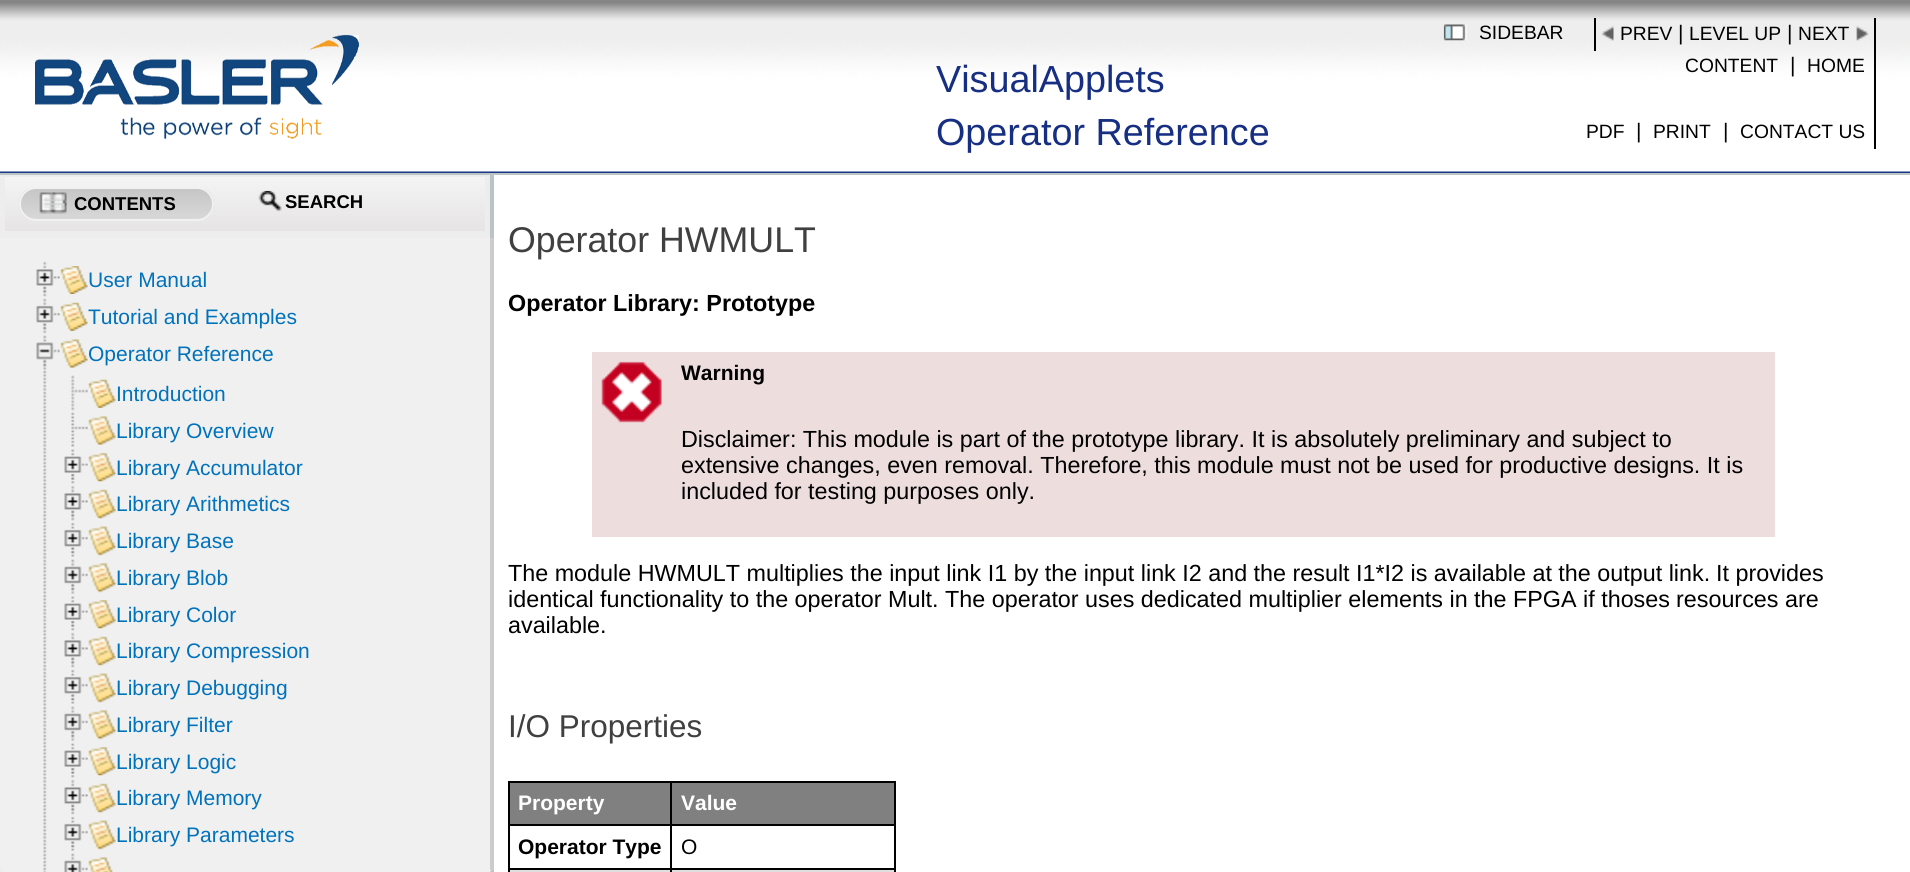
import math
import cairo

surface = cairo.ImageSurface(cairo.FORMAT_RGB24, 1910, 872)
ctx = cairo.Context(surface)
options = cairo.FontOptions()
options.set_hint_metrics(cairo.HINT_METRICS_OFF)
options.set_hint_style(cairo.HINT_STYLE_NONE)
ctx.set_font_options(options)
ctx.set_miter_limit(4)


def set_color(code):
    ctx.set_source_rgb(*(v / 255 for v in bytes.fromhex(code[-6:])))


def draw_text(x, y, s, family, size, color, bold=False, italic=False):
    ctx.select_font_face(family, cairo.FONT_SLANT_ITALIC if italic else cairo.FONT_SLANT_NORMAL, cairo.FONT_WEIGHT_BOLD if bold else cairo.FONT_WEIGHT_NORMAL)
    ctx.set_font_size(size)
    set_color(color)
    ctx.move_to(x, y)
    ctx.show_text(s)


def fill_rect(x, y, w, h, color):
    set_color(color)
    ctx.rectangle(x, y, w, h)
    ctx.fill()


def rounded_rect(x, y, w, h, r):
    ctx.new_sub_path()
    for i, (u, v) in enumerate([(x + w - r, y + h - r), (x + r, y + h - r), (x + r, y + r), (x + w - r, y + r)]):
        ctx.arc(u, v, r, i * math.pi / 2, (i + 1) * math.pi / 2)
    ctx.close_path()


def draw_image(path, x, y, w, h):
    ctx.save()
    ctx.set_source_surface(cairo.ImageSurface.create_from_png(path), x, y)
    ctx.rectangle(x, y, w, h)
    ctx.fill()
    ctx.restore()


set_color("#ffffff")
ctx.paint()
draw_image("assets/img1.png", 0, 0, 1910, 173)
fill_rect(0, 173, 1910, 2, "#bbc4c5")
draw_image("assets/img2.png", 35, 34, 324, 105)
draw_text(936, 92, "VisualApplets", "Liberation Sans", 37.75, "#162f82")
draw_text(936, 145, "Operator Reference", "Liberation Sans", 37.75, "#162f82")
fill_rect(1594, 18, 2, 33, "#000000")
draw_image("assets/img3.png", 1443, 24, 24, 17)
draw_text(1479, 39, "SIDEBAR", "Liberation Sans", 19.25, "#000000")
draw_image("assets/img4.png", 1601, 26, 13, 15)
draw_text(1620, 40, "PREV", "Liberation Sans", 19.25, "#000000")
draw_text(1678, 40, "|", "Liberation Sans", 21, "#000000")
draw_text(1689, 40, "LEVEL UP", "Liberation Sans", 19.25, "#000000")
draw_text(1787, 40, "|", "Liberation Sans", 21, "#000000")
draw_text(1798, 40, "NEXT", "Liberation Sans", 19.25, "#000000")
draw_image("assets/img5.png", 1856, 26, 13, 15)
draw_text(1685, 72, "CONTENT", "Liberation Sans", 19.25, "#000000")
draw_text(1790, 72, "|", "Liberation Sans", 21, "#000000")
draw_text(1807, 72, "HOME", "Liberation Sans", 19.25, "#000000")
fill_rect(1874, 18, 2, 131, "#000000")
draw_text(1586, 138, "PDF", "Liberation Sans", 19.25, "#000000")
draw_text(1636, 138, "|", "Liberation Sans", 21, "#000000")
draw_text(1653, 138, "PRINT", "Liberation Sans", 19.25, "#000000")
draw_text(1723, 138, "|", "Liberation Sans", 21, "#000000")
draw_text(1740, 138, "CONTACT US", "Liberation Sans", 19.25, "#000000")
fill_rect(0, 175, 490, 697, "#ededed")
fill_rect(490, 175, 4, 697, "#bbc4c5")
gradient = cairo.LinearGradient(5.2, 177, 5.2, 231)
gradient.add_color_stop_rgba(0, 0.957, 0.957, 0.957, 1)
gradient.add_color_stop_rgba(1, 0.902, 0.894, 0.898, 1)
ctx.set_source(gradient)
ctx.rectangle(5, 177, 480, 54)
ctx.fill()
ctx.save()
rounded_rect(19, 187, 195, 34, 17)
ctx.clip()
gradient = cairo.LinearGradient(21, 189, 21, 219)
gradient.add_color_stop_rgba(0, 0.776, 0.776, 0.776, 1)
gradient.add_color_stop_rgba(1, 0.847, 0.847, 0.847, 1)
ctx.set_source(gradient)
ctx.rectangle(19, 189, 195, 30)
ctx.fill()
ctx.restore()
rounded_rect(20, 188, 193, 32, 16)
set_color("#f1f1f1")
ctx.stroke()
draw_image("assets/img6.png", 39, 192, 28, 22)
draw_text(74, 210, "CONTENTS", "Liberation Sans", 18.5, "#000000", bold=True)
draw_image("assets/img7.png", 258, 190, 24, 22)
draw_text(285, 208, "SEARCH", "Liberation Sans", 18.5, "#000000", bold=True)
set_color("#f0f0f0")
ctx.new_path()
ctx.move_to(0, 238)
ctx.line_to(494, 238)
ctx.line_to(494, 864)
ctx.curve_to(494, 869, 490, 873, 485, 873)
ctx.line_to(9, 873)
ctx.curve_to(4, 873, 0, 869, 0, 864)
ctx.close_path()
ctx.fill()
fill_rect(490, 238, 4, 632, "#cccccc")
draw_image("assets/img8.png", 43, 261, 4, 36)
draw_image("assets/img9.png", 36, 269, 24, 24)
draw_image("assets/img10.png", 60, 266, 28, 28)
draw_text(88, 287, "User Manual", "Liberation Sans", 21, "#0072bc")
draw_image("assets/img11.png", 43, 298, 4, 36)
draw_image("assets/img12.png", 36, 305, 24, 25)
draw_image("assets/img13.png", 60, 302, 28, 29)
draw_text(88, 324, "Tutorial and Examples", "Liberation Sans", 21, "#0072bc")
draw_image("assets/img14.png", 43, 335, 4, 537)
draw_image("assets/img15.png", 36, 342, 24, 25)
draw_image("assets/img16.png", 60, 339, 28, 29)
draw_text(88, 361, "Operator Reference", "Liberation Sans", 21, "#0072bc")
draw_image("assets/img17.png", 71, 375, 17, 36)
draw_image("assets/img13.png", 88, 379, 28, 29)
draw_text(116, 401, "Introduction", "Liberation Sans", 21, "#0072bc")
draw_image("assets/img18.png", 71, 412, 17, 35)
draw_image("assets/img19.png", 88, 416, 28, 29)
draw_text(116, 438, "Library Overview", "Liberation Sans", 21, "#0072bc")
draw_image("assets/img20.png", 71, 449, 4, 35)
draw_image("assets/img21.png", 64, 456, 24, 24)
draw_image("assets/img22.png", 88, 453, 28, 29)
draw_text(116, 475, "Library Accumulator", "Liberation Sans", 21, "#0072bc")
draw_image("assets/img23.png", 71, 485, 4, 36)
draw_image("assets/img24.png", 64, 493, 24, 24)
draw_image("assets/img25.png", 88, 489, 28, 30)
draw_text(116, 511, "Library Arithmetics", "Liberation Sans", 21, "#0072bc")
draw_image("assets/img26.png", 71, 522, 4, 35)
draw_image("assets/img27.png", 64, 529, 24, 25)
draw_image("assets/img28.png", 88, 526, 28, 30)
draw_text(116, 548, "Library Base", "Liberation Sans", 21, "#0072bc")
draw_image("assets/img29.png", 71, 559, 4, 36)
draw_image("assets/img30.png", 64, 566, 24, 25)
draw_image("assets/img31.png", 88, 563, 28, 30)
draw_text(116, 585, "Library Blob", "Liberation Sans", 21, "#0072bc")
draw_image("assets/img20.png", 71, 596, 4, 35)
draw_image("assets/img21.png", 64, 603, 24, 24)
draw_image("assets/img32.png", 88, 600, 28, 29)
draw_text(116, 622, "Library Color", "Liberation Sans", 21, "#0072bc")
draw_image("assets/img23.png", 71, 632, 4, 36)
draw_image("assets/img24.png", 64, 640, 24, 24)
draw_image("assets/img25.png", 88, 636, 28, 30)
draw_text(116, 658, "Library Compression", "Liberation Sans", 21, "#0072bc")
draw_image("assets/img26.png", 71, 669, 4, 35)
draw_image("assets/img27.png", 64, 676, 24, 25)
draw_image("assets/img33.png", 88, 673, 28, 30)
draw_text(116, 695, "Library Debugging", "Liberation Sans", 21, "#0072bc")
draw_image("assets/img29.png", 71, 706, 4, 36)
draw_image("assets/img30.png", 64, 713, 24, 25)
draw_image("assets/img34.png", 88, 710, 28, 30)
draw_text(116, 732, "Library Filter", "Liberation Sans", 21, "#0072bc")
draw_image("assets/img20.png", 71, 743, 4, 35)
draw_image("assets/img21.png", 64, 750, 24, 24)
draw_image("assets/img32.png", 88, 747, 28, 29)
draw_text(116, 769, "Library Logic", "Liberation Sans", 21, "#0072bc")
draw_image("assets/img35.png", 71, 779, 4, 36)
draw_image("assets/img36.png", 64, 787, 24, 24)
draw_image("assets/img25.png", 88, 783, 28, 30)
draw_text(116, 805, "Library Memory", "Liberation Sans", 21, "#0072bc")
draw_image("assets/img26.png", 71, 816, 4, 35)
draw_image("assets/img27.png", 64, 823, 24, 25)
draw_image("assets/img28.png", 88, 820, 28, 30)
draw_text(116, 842, "Library Parameters", "Liberation Sans", 21, "#0072bc")
draw_image("assets/img37.png", 71, 853, 4, 8)
draw_image("assets/img38.png", 64, 860, 24, 12)
draw_image("assets/img39.png", 88, 857, 25, 15)
draw_text(508, 252, "Operator HWMULT", "Liberation Sans", 35.75, "#404040")
draw_text(508, 311, "Operator Library: Prototype", "Liberation Sans", 23.33, "#000000", bold=True)
fill_rect(592, 352, 1183, 185, "#eedddd")
draw_image("assets/img40.png", 601, 361, 61, 62)
draw_text(681, 380, "Warning", "Liberation Sans", 21, "#000000", bold=True)
draw_text(681, 447, "Disclaimer: This module is part of the prototype library. It is absolutely preliminary and subject to", "Liberation Sans", 23.33, "#000000")
draw_text(681, 473, "extensive changes, even removal. Therefore, this module must not be used for productive designs. It is", "Liberation Sans", 23.33, "#000000")
draw_text(681, 499, "included for testing purposes only.", "Liberation Sans", 23.33, "#000000")
draw_text(508, 581, "The module HWMULT multiplies the input link I1 by the input link I2 and the result I1*I2 is available at the output link.", "Liberation Sans", 23.33, "#000000")
draw_text(1716, 581, "It provides", "Liberation Sans", 23.33, "#000000")
draw_text(508, 607, "identical functionality to the operator Mult. The operator uses dedicated multiplier elements in the FPGA if thoses", "Liberation Sans", 23.33, "#000000")
draw_text(1676, 607, "resources are", "Liberation Sans", 23.33, "#000000")
draw_text(508, 633, "available.", "Liberation Sans", 23.33, "#000000")
draw_text(508, 737, "I/O Properties", "Liberation Sans", 31.5, "#404040")
fill_rect(508, 781, 388, 2, "#000000")
fill_rect(509, 870, 387, 2, "#dfdfdf")
fill_rect(894, 781, 2, 91, "#000000")
fill_rect(508, 781, 2, 91, "#000000")
fill_rect(510, 783, 160, 41, "#808080")
draw_text(518, 810, "Property", "Liberation Sans", 21, "#ffffff", bold=True)
fill_rect(672, 783, 222, 41, "#808080")
fill_rect(670, 824, 226, 2, "#000000")
fill_rect(670, 868, 226, 2, "#000000")
fill_rect(670, 868, 2, 4, "#000000")
fill_rect(508, 868, 164, 2, "#000000")
fill_rect(670, 824, 2, 46, "#000000")
fill_rect(508, 824, 164, 2, "#000000")
fill_rect(670, 781, 2, 45, "#000000")
draw_text(681, 810, "Value", "Liberation Sans", 21, "#ffffff", bold=True)
draw_text(518, 854, "Operator Type", "Liberation Sans", 21, "#000000", bold=True)
draw_text(681, 854, "O", "Liberation Sans", 21, "#000000")
surface.write_to_png("output.png")
